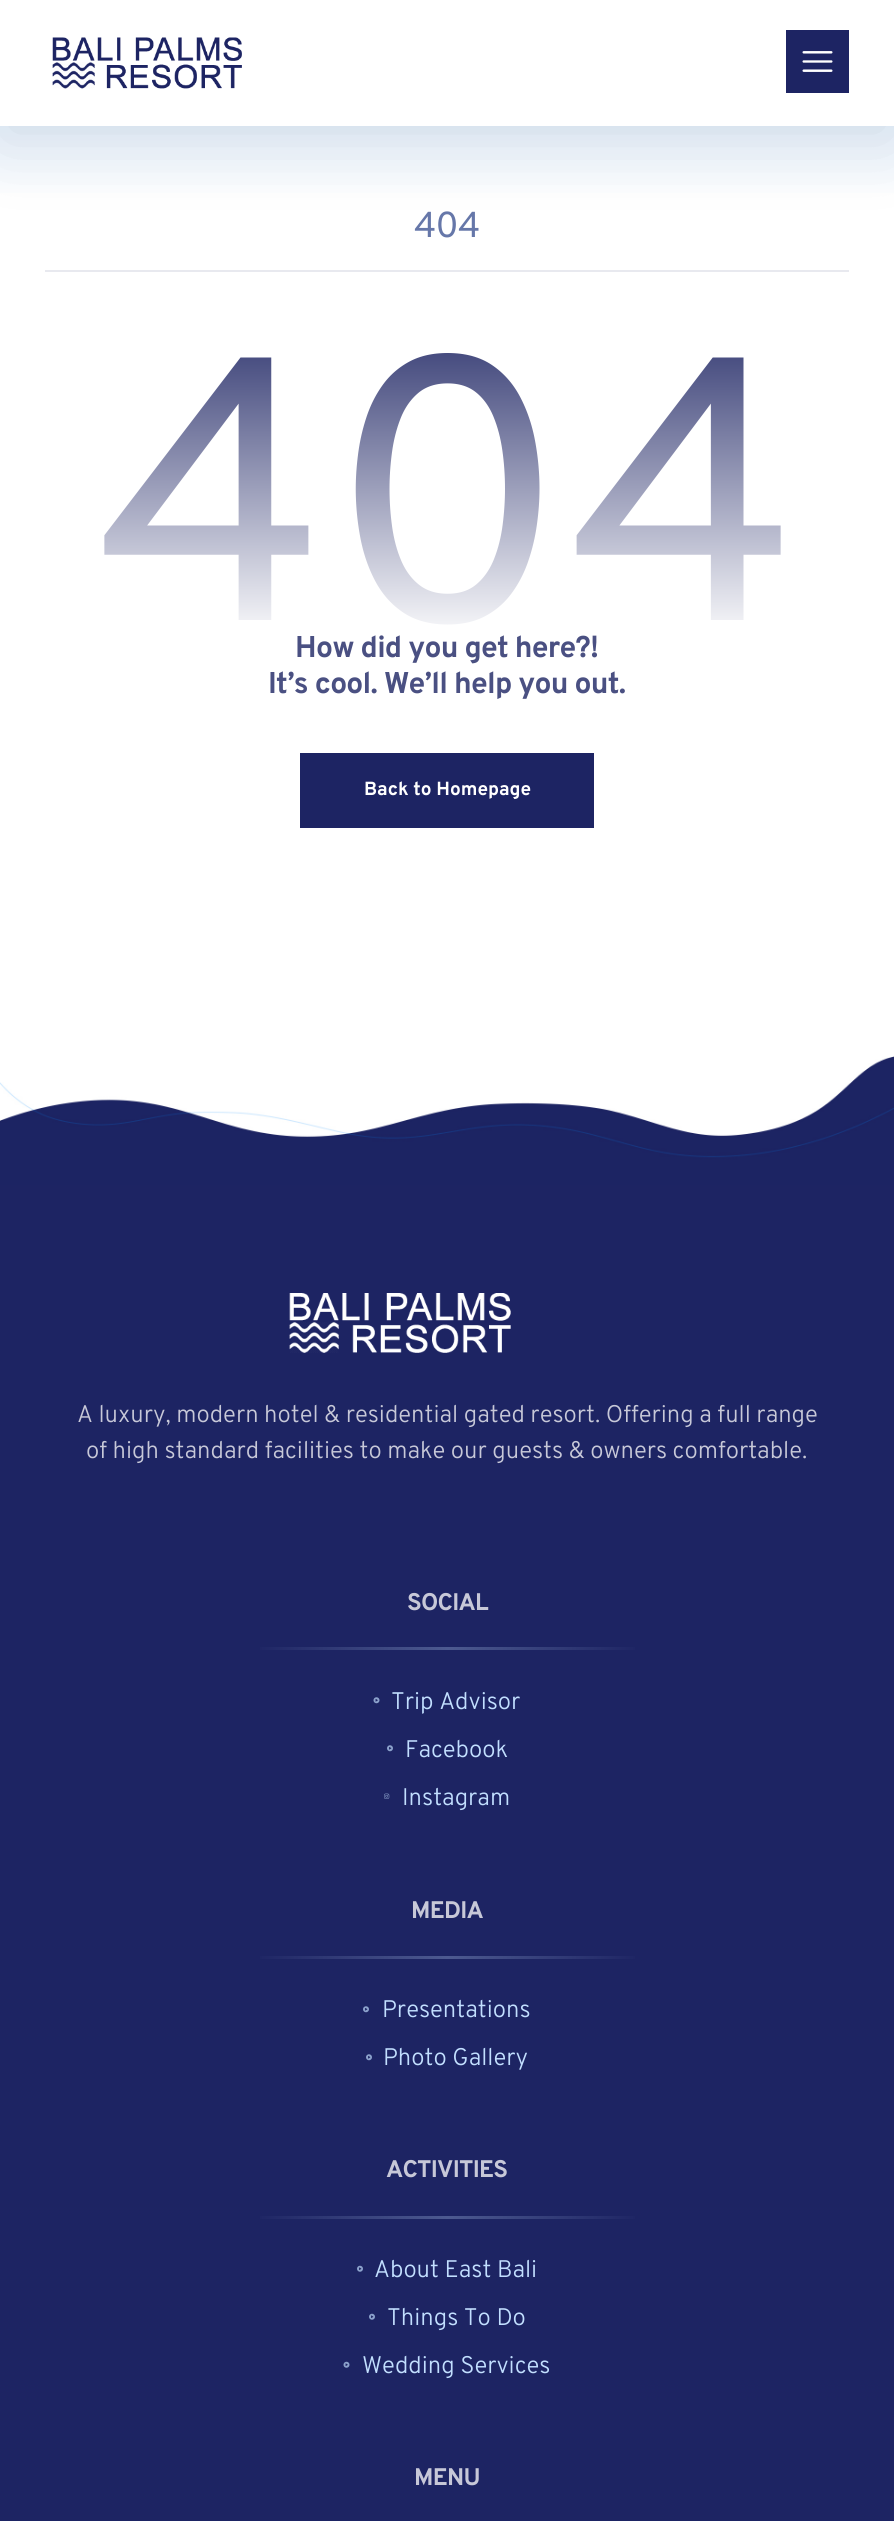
import math
import cairo

surface = cairo.ImageSurface(cairo.FORMAT_RGB24, 894, 2521)
ctx = cairo.Context(surface)
options = cairo.FontOptions()
options.set_hint_metrics(cairo.HINT_METRICS_OFF)
options.set_hint_style(cairo.HINT_STYLE_NONE)
ctx.set_font_options(options)
ctx.set_miter_limit(4)


def set_color(code):
    ctx.set_source_rgb(*(v / 255 for v in bytes.fromhex(code[-6:])))


def draw_text(x, y, s, family, size, color, bold=False, italic=False):
    ctx.select_font_face(family, cairo.FONT_SLANT_ITALIC if italic else cairo.FONT_SLANT_NORMAL, cairo.FONT_WEIGHT_BOLD if bold else cairo.FONT_WEIGHT_NORMAL)
    ctx.set_font_size(size)
    set_color(color)
    ctx.move_to(x, y)
    ctx.show_text(s)


def draw_spaced(x, y, s, letter, word):
    ctx.move_to(x, y)
    for ch in s:
        ctx.show_text(ch)
        ctx.rel_move_to(letter + word * (ch == ' '), 0)


def fill_rect(x, y, w, h, color):
    set_color(color)
    ctx.rectangle(x, y, w, h)
    ctx.fill()


def rounded_rect(x, y, w, h, r):
    ctx.new_sub_path()
    for i, (u, v) in enumerate([(x + w - r, y + h - r), (x + r, y + h - r), (x + r, y + r), (x + w - r, y + r)]):
        ctx.arc(u, v, r, i * math.pi / 2, (i + 1) * math.pi / 2)
    ctx.close_path()


def draw_shadow(x, y, w, h, r, blur, alpha):
    ctx.push_group_with_content(cairo.CONTENT_ALPHA)
    ctx.set_operator(cairo.OPERATOR_SOURCE)
    for i in range(15, -16, -2):
        e = blur * i / 6
        if min(w, h) + 2 * e > 0:
            ctx.set_source_rgba(0, 0, 0, alpha * math.erfc((i - 1) / 8.5) / 2)
            rounded_rect(x - e, y - e, w + 2 * e, h + 2 * e, max(0, min(r + e + blur * .6, min(w, h) / 2 + e)))
            ctx.fill()
    ctx.mask(ctx.pop_group())


def draw_image(path, x, y, w, h):
    ctx.save()
    ctx.set_source_surface(cairo.ImageSurface.create_from_png(path), x, y)
    ctx.rectangle(x, y, w, h)
    ctx.fill()
    ctx.restore()


set_color("#ffffff")
ctx.paint()
gradient = cairo.LinearGradient(447, 0, 447, 201)
gradient.add_color_stop_rgba(0, 0.761, 0.875, 1, 1)
gradient.add_color_stop_rgba(1, 1, 1, 1, 1)
ctx.set_source(gradient)
ctx.rectangle(0, 126, 894, 67)
ctx.fill()
set_color("#000000")
draw_shadow(0, 15, 894, 126, 0, 37.5, 0.1)
fill_rect(0, 0, 894, 126, "#ffffff")
draw_image("assets/img1.png", 52, 37, 190, 52)
fill_rect(786, 30, 63, 63, "#1d2463")
draw_image("assets/img2.png", 802, 51, 31, 21)
fill_rect(45, 270, 804, 2, "#e8e9ef")
ctx.select_font_face("Overpass")
ctx.set_font_size(36)
set_color("#6677a9")
draw_spaced(414, 237, "404", -0.75, 0)
ctx.set_font_size(375)
gradient = cairo.LinearGradient(447, 288, 447, 764)
gradient.add_color_stop_rgba(0, 0.114, 0.141, 0.388, 1)
gradient.add_color_stop_rgba(0.75, 1, 1, 1, 1)
ctx.set_source(gradient)
draw_spaced(95, 620, "404", -0.75, 0)
ctx.select_font_face("Overpass", cairo.FONT_SLANT_NORMAL, cairo.FONT_WEIGHT_BOLD)
ctx.set_font_size(30)
set_color("#4a5082")
draw_spaced(295, 657, "How did you get here?!", -0.75, 0)
draw_spaced(268, 693, "It’s cool. We’ll help you out.", -0.75, 0)
fill_rect(300, 753, 294, 75, "#1d2463")
draw_text(364, 795, "Back to Homepage", "Overpass", 19, "#ffffff", bold=True)
draw_image("assets/img3.png", 0, 1056, 894, 1465)
draw_image("assets/img4.png", 289, 1293, 222, 60)
draw_text(77, 1422, "A luxury, modern hotel & residential gated resort. Offering a full range", "Overpass Light", 24, "#c7c8d8")
draw_text(86, 1458, "of high standard facilities to make our guests & owners comfortable.", "Overpass Light", 24, "#c7c8d8")
ctx.select_font_face("Overpass", cairo.FONT_SLANT_NORMAL, cairo.FONT_WEIGHT_BOLD)
draw_spaced(407, 1610, "SOCIAL", -0.75, 0)
gradient = cairo.LinearGradient(260, 1649, 635, 1649)
gradient.add_color_stop_rgba(0, 0.122, 0.149, 0.396, 1)
gradient.add_color_stop_rgba(0.5, 0.302, 0.353, 0.565, 1)
gradient.add_color_stop_rgba(1, 0.122, 0.149, 0.396, 1)
ctx.set_source(gradient)
ctx.rectangle(260, 1647, 375, 3)
ctx.fill()
draw_image("assets/img5.png", 373, 1697, 7, 7)
draw_text(391, 1709, "Trip Advisor", "Overpass Light", 24, "#c2dfff")
draw_image("assets/img6.png", 387, 1745, 6, 7)
draw_text(405, 1757, "Facebook", "Overpass Light", 24, "#c2dfff")
draw_image("assets/img7.png", 384, 1793, 6, 6)
draw_text(402, 1805, "Instagram", "Overpass Light", 24, "#c2dfff")
ctx.select_font_face("Overpass", cairo.FONT_SLANT_NORMAL, cairo.FONT_WEIGHT_BOLD)
set_color("#c7c8d8")
draw_spaced(411, 1918, "MEDIA", -0.75, 0)
gradient = cairo.LinearGradient(260, 1958, 635, 1958)
gradient.add_color_stop_rgba(0, 0.122, 0.149, 0.396, 1)
gradient.add_color_stop_rgba(0.5, 0.302, 0.353, 0.565, 1)
gradient.add_color_stop_rgba(1, 0.122, 0.149, 0.396, 1)
ctx.set_source(gradient)
ctx.rectangle(260, 1956, 375, 3)
ctx.fill()
draw_image("assets/img6.png", 363, 2006, 6, 7)
draw_text(382, 2017, "Presentations", "Overpass Light", 24, "#c2dfff")
draw_image("assets/img6.png", 366, 2054, 6, 7)
draw_text(383, 2065, "Photo Gallery", "Overpass Light", 24, "#c2dfff")
ctx.select_font_face("Overpass", cairo.FONT_SLANT_NORMAL, cairo.FONT_WEIGHT_BOLD)
set_color("#c7c8d8")
draw_spaced(386, 2177, "ACTIVITIES", -0.75, 0)
gradient = cairo.LinearGradient(260, 2217, 635, 2217)
gradient.add_color_stop_rgba(0, 0.122, 0.149, 0.396, 1)
gradient.add_color_stop_rgba(0.5, 0.302, 0.353, 0.565, 1)
gradient.add_color_stop_rgba(1, 0.122, 0.149, 0.396, 1)
ctx.set_source(gradient)
ctx.rectangle(260, 2216, 375, 3)
ctx.fill()
draw_image("assets/img8.png", 357, 2265, 6, 7)
draw_text(374, 2277, "About East Bali", "Overpass Light", 24, "#c2dfff")
draw_image("assets/img8.png", 369, 2313, 6, 7)
draw_text(387, 2325, "Things To Do", "Overpass Light", 24, "#c2dfff")
draw_image("assets/img9.png", 343, 2361, 7, 7)
draw_text(362, 2373, "Wedding Services", "Overpass Light", 24, "#c2dfff")
ctx.select_font_face("Overpass", cairo.FONT_SLANT_NORMAL, cairo.FONT_WEIGHT_BOLD)
set_color("#c7c8d8")
draw_spaced(414, 2485, "MENU", -0.75, 0)
surface.write_to_png("output.png")
